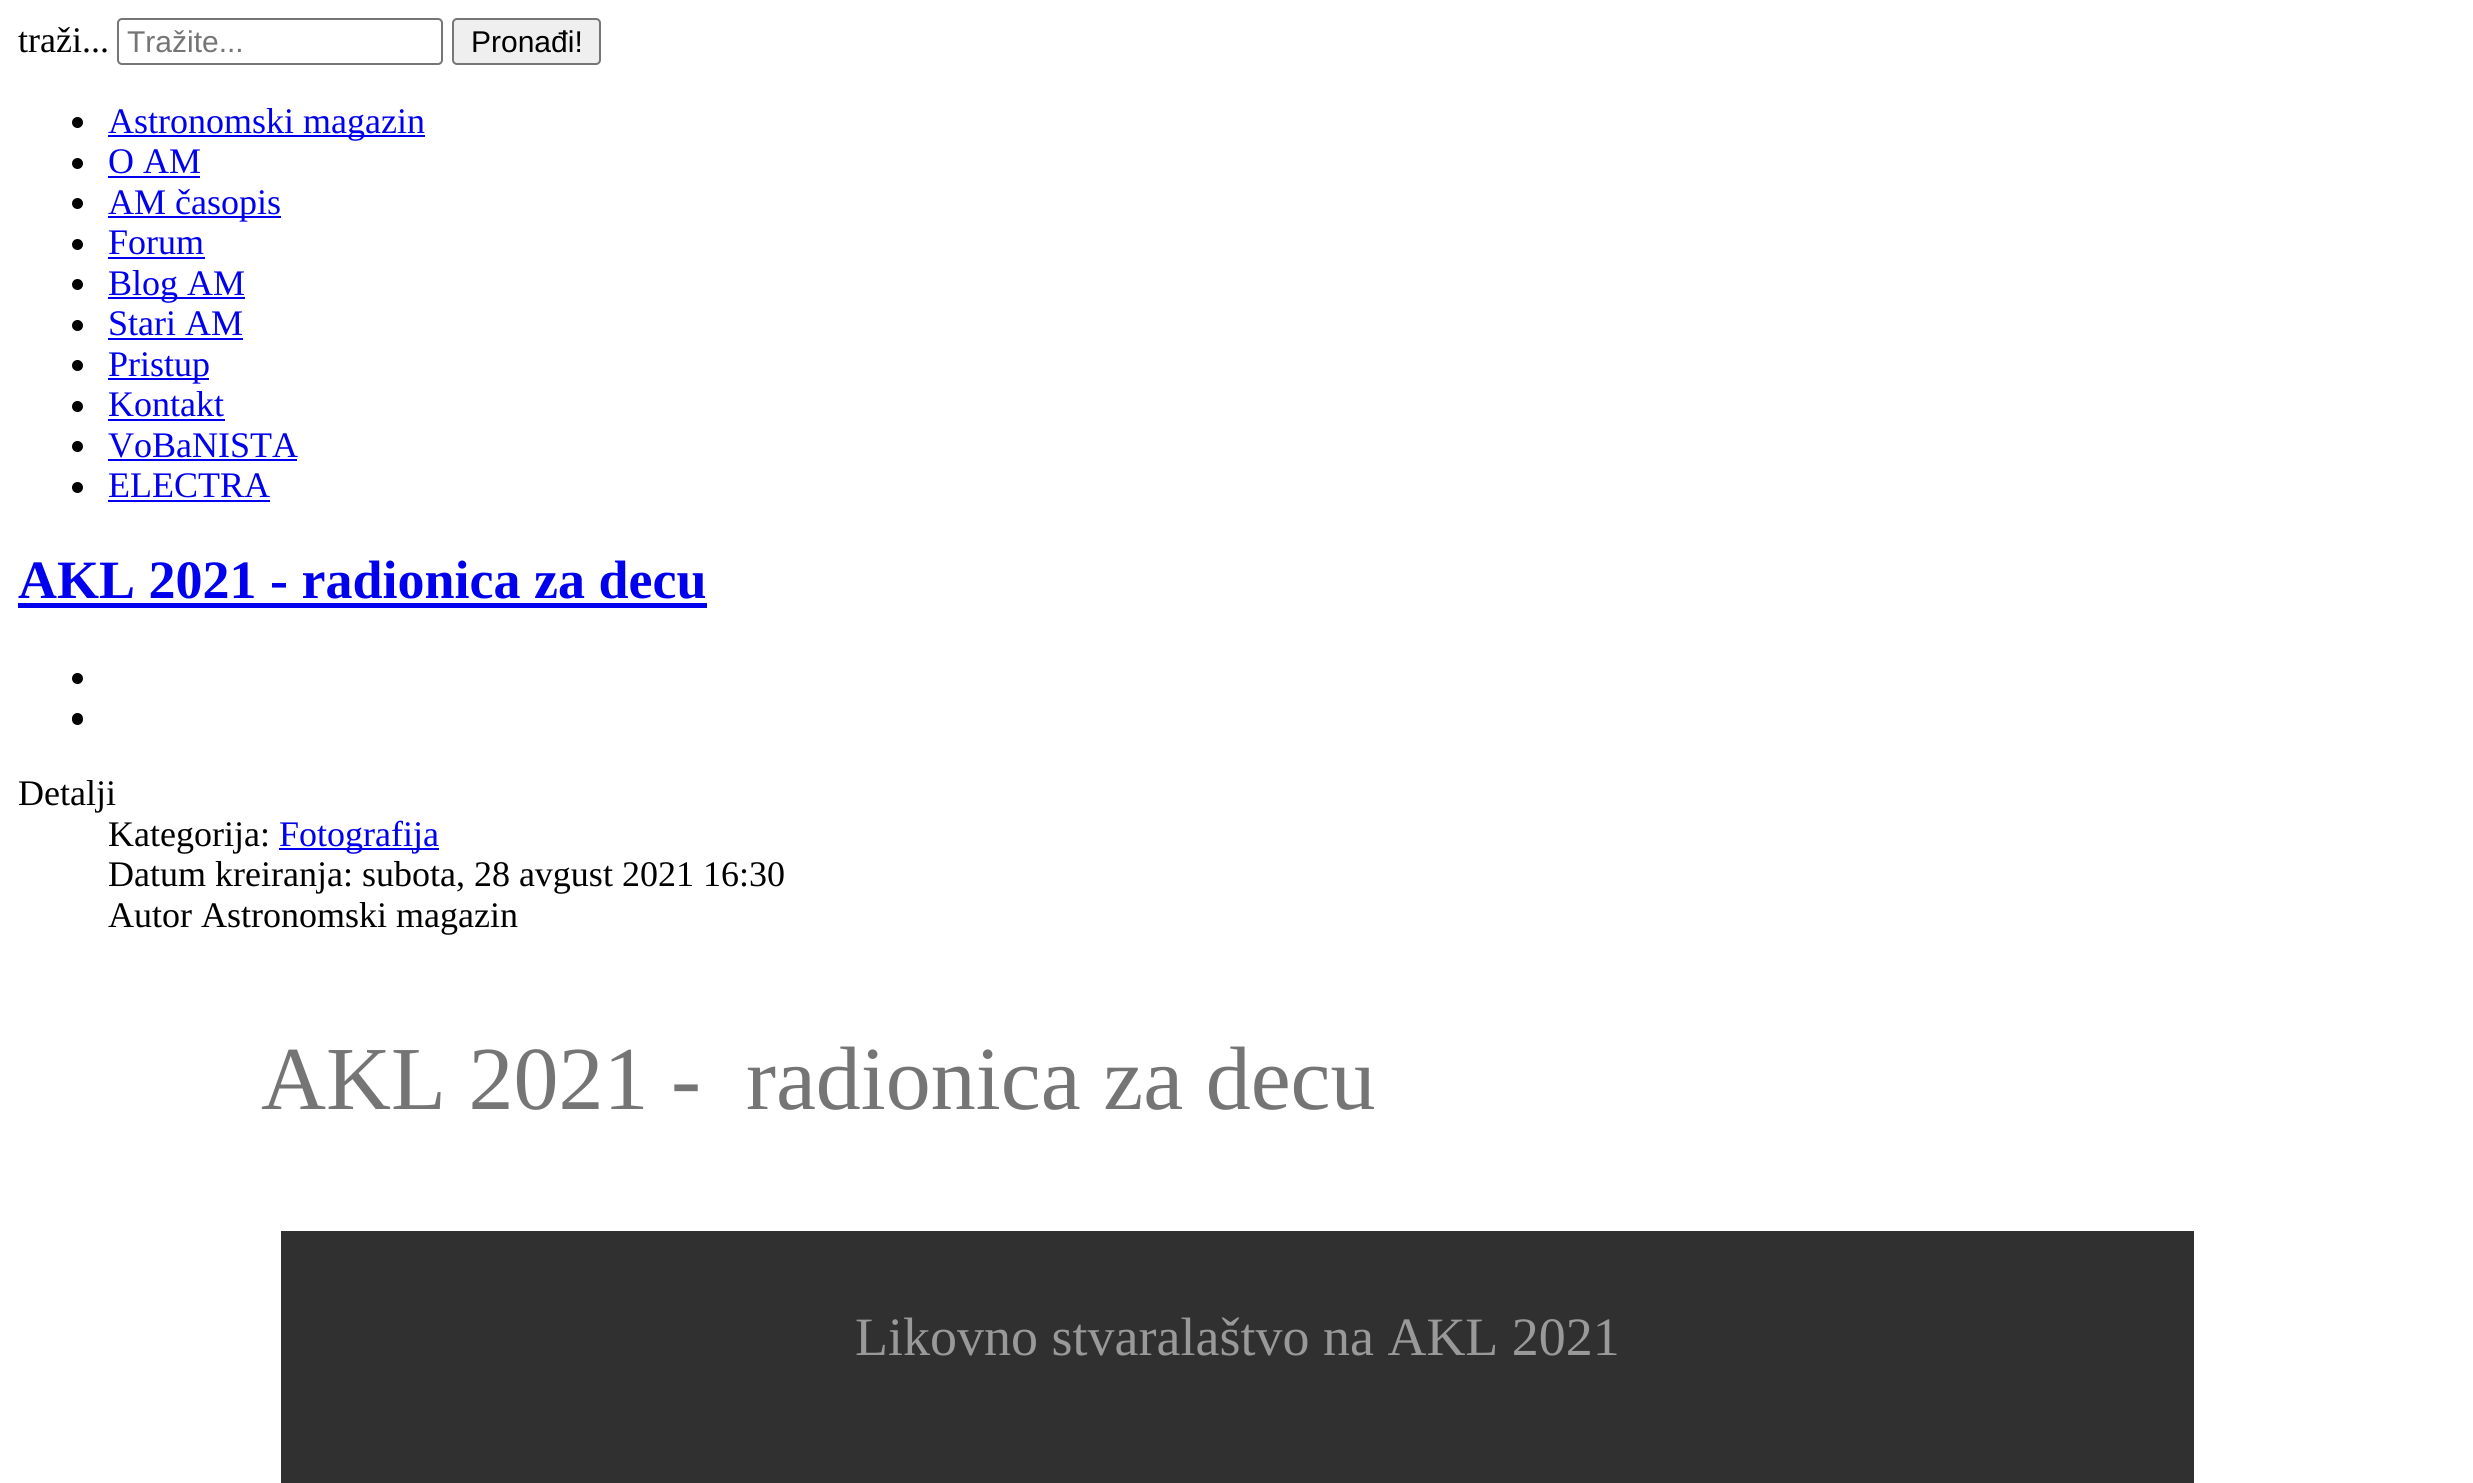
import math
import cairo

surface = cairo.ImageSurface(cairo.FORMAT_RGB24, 2473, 1483)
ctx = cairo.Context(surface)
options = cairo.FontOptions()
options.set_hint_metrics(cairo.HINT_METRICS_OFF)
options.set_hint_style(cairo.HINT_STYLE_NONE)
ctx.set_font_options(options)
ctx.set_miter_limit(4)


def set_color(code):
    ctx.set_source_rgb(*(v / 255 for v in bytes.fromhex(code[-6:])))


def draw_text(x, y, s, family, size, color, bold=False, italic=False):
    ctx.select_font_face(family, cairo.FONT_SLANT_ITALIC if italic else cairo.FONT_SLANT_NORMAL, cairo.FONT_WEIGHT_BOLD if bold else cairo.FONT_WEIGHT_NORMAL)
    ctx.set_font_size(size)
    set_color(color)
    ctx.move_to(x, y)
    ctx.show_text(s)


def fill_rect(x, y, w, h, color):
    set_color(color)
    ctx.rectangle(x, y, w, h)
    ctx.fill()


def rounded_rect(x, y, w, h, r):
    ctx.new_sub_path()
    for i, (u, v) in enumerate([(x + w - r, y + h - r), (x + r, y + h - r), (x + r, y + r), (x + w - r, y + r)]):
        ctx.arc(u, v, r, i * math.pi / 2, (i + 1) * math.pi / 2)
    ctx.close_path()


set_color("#ffffff")
ctx.paint()
draw_text(18, 52, "traži...", "Liberation Serif", 36, "#000000")
rounded_rect(118, 19, 324, 45, 4)
set_color("#767676")
ctx.stroke()
draw_text(127, 52, "Tražite...", "Liberation Sans", 30, "#757575")
set_color("#efefef")
rounded_rect(453, 19, 147, 45, 4)
ctx.fill_preserve()
set_color("#767676")
ctx.stroke()
draw_text(471, 52, "Pronađi!", "Liberation Sans", 30, "#000000")
ctx.new_path()
ctx.arc(77.5, 122.5, 5.5, 0, 2 * math.pi)
ctx.fill()
fill_rect(108, 135, 317, 2, "#0000ee")
draw_text(108, 133, "Astronomski magazin", "Liberation Serif", 36, "#0000ee")
set_color("#000000")
ctx.new_path()
ctx.arc(77.5, 163.5, 5.5, 0, 2 * math.pi)
ctx.fill()
draw_text(108, 173, "O AM", "Liberation Serif", 36, "#0000ee")
fill_rect(108, 176, 92, 2, "#0000ee")
set_color("#000000")
ctx.new_path()
ctx.arc(77.5, 203.5, 5.5, 0, 2 * math.pi)
ctx.fill()
fill_rect(108, 216, 173, 2, "#0000ee")
draw_text(108, 214, "AM časopis", "Liberation Serif", 36, "#0000ee")
set_color("#000000")
ctx.new_path()
ctx.arc(77.5, 244.5, 5.5, 0, 2 * math.pi)
ctx.fill()
draw_text(108, 254, "Forum", "Liberation Serif", 36, "#0000ee")
fill_rect(108, 257, 97, 2, "#0000ee")
set_color("#000000")
ctx.new_path()
ctx.arc(77.5, 284.5, 5.5, 0, 2 * math.pi)
ctx.fill()
fill_rect(108, 297, 137, 2, "#0000ee")
draw_text(108, 295, "Blog AM", "Liberation Serif", 36, "#0000ee")
set_color("#000000")
ctx.new_path()
ctx.arc(77.5, 325.5, 5.5, 0, 2 * math.pi)
ctx.fill()
draw_text(108, 335, "Stari AM", "Liberation Serif", 36, "#0000ee")
fill_rect(108, 338, 135, 2, "#0000ee")
set_color("#000000")
ctx.new_path()
ctx.arc(77.5, 365.5, 5.5, 0, 2 * math.pi)
ctx.fill()
fill_rect(108, 378, 101, 2, "#0000ee")
draw_text(108, 376, "Pristup", "Liberation Serif", 36, "#0000ee")
set_color("#000000")
ctx.new_path()
ctx.arc(77.5, 406.5, 5.5, 0, 2 * math.pi)
ctx.fill()
draw_text(108, 416, "Kontakt", "Liberation Serif", 36, "#0000ee")
fill_rect(108, 419, 117, 2, "#0000ee")
set_color("#000000")
ctx.new_path()
ctx.arc(77.5, 446.5, 5.5, 0, 2 * math.pi)
ctx.fill()
draw_text(108, 457, "VoBaNISTA", "Liberation Serif", 36, "#0000ee")
fill_rect(108, 459, 189, 2, "#0000ee")
set_color("#000000")
ctx.new_path()
ctx.arc(77.5, 487.5, 5.5, 0, 2 * math.pi)
ctx.fill()
draw_text(108, 497, "ELECTRA", "Liberation Serif", 36, "#0000ee")
fill_rect(108, 500, 162, 2, "#0000ee")
draw_text(18, 598, "AKL 2021 - radionica za decu", "Liberation Serif", 54, "#0000ee", bold=True)
fill_rect(18, 603, 689, 5, "#0000ee")
set_color("#000000")
ctx.new_path()
ctx.arc(77.5, 678.5, 5.5, 0, 2 * math.pi)
ctx.fill()
rounded_rect(72, 713, 11, 12, 5.5)
ctx.fill()
draw_text(18, 805, "Detalji", "Liberation Serif", 36, "#000000")
draw_text(108, 846, "Kategorija:", "Liberation Serif", 36, "#000000")
fill_rect(279, 848, 160, 2, "#0000ee")
draw_text(279, 846, "Fotografija", "Liberation Serif", 36, "#0000ee")
draw_text(108, 886, "Datum kreiranja: subota, 28 avgust 2021 16:30", "Liberation Serif", 36, "#000000")
draw_text(108, 927, "Autor Astronomski magazin", "Liberation Serif", 36, "#000000")
draw_text(261, 1109, "AKL 2021 -  radionica za decu", "Liberation Serif", 90, "#757575")
fill_rect(281, 1231, 1913, 252, "#313030")
draw_text(855, 1355, "Likovno stvaralaštvo na AKL 2021", "Liberation Serif", 54, "#999999")
surface.write_to_png("output.png")
